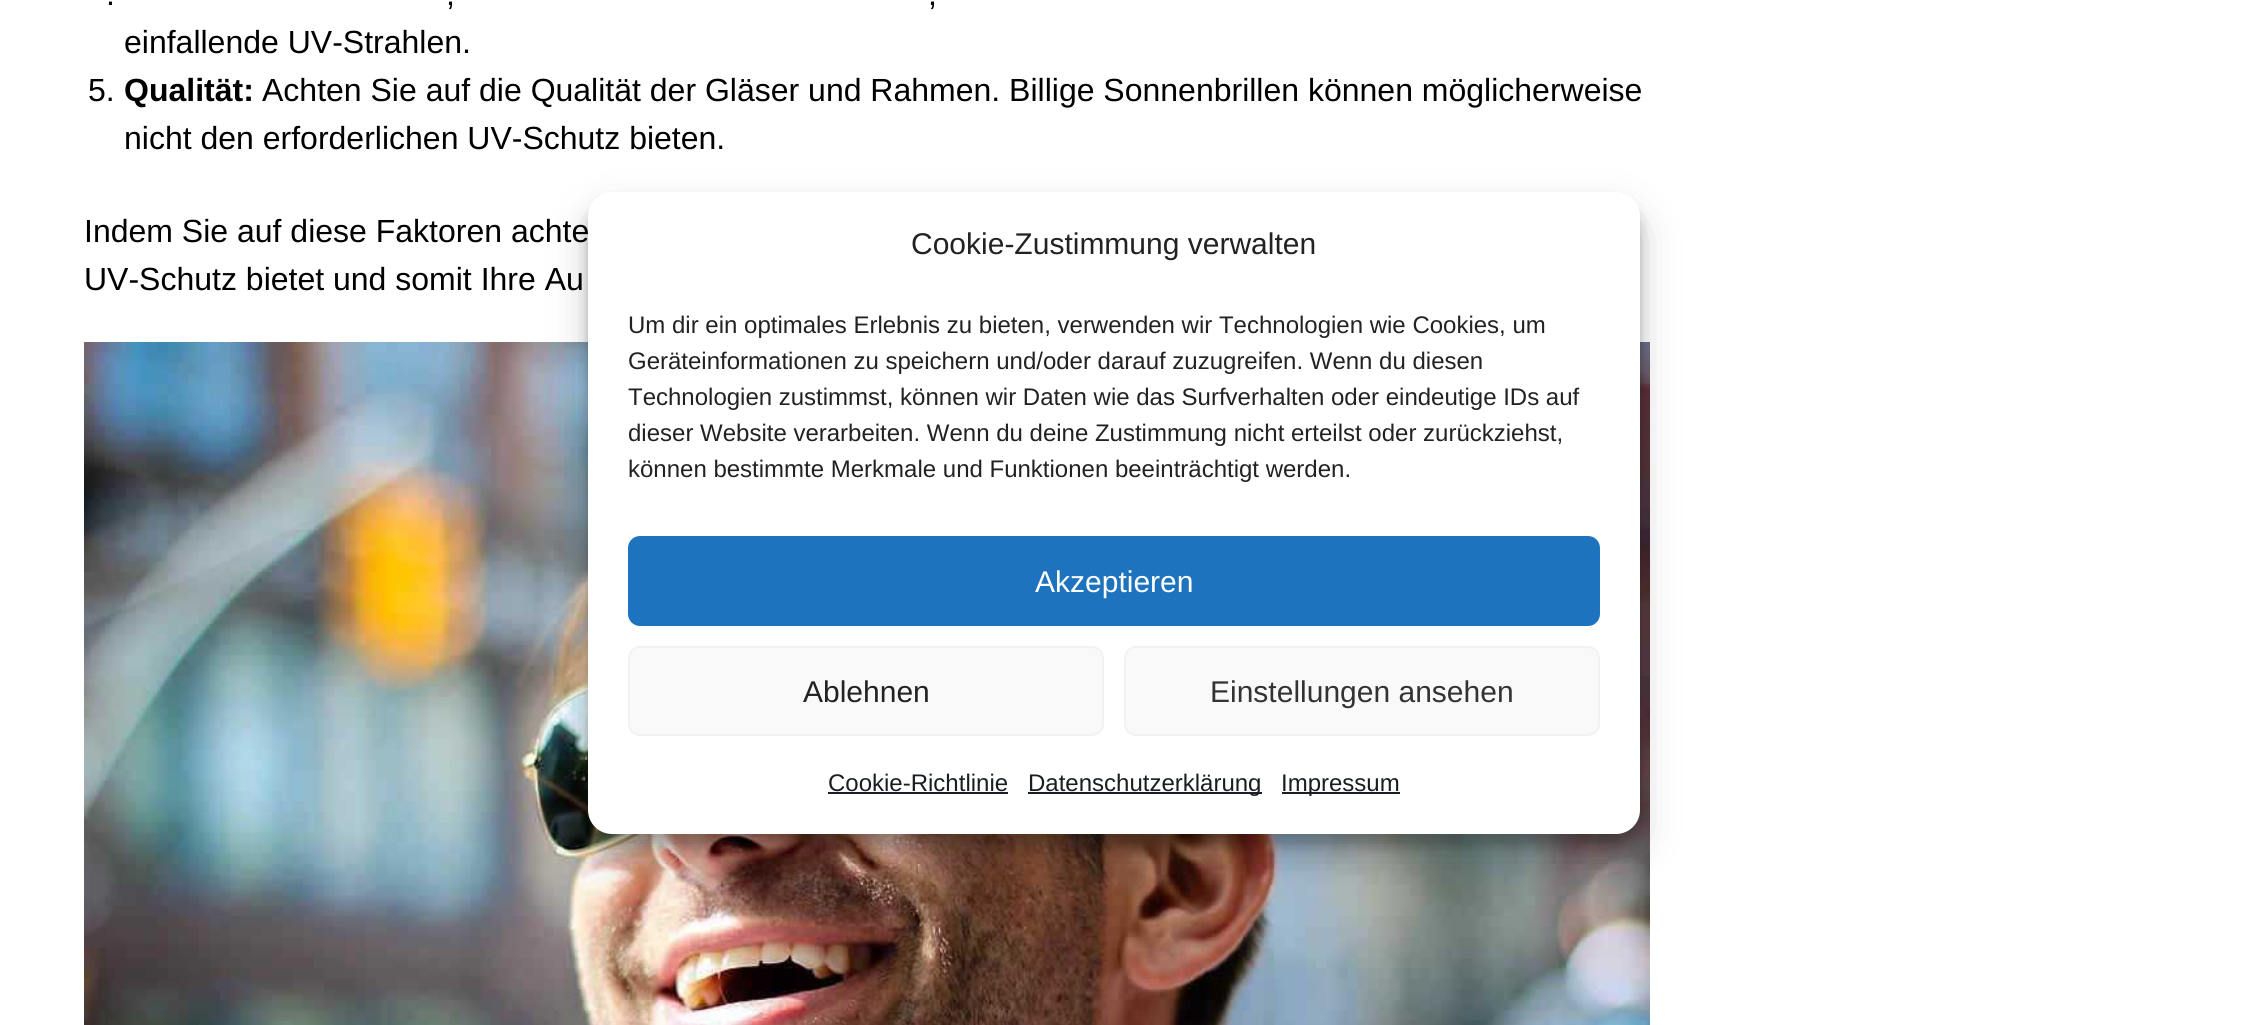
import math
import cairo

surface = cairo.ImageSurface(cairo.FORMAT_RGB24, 2258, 1025)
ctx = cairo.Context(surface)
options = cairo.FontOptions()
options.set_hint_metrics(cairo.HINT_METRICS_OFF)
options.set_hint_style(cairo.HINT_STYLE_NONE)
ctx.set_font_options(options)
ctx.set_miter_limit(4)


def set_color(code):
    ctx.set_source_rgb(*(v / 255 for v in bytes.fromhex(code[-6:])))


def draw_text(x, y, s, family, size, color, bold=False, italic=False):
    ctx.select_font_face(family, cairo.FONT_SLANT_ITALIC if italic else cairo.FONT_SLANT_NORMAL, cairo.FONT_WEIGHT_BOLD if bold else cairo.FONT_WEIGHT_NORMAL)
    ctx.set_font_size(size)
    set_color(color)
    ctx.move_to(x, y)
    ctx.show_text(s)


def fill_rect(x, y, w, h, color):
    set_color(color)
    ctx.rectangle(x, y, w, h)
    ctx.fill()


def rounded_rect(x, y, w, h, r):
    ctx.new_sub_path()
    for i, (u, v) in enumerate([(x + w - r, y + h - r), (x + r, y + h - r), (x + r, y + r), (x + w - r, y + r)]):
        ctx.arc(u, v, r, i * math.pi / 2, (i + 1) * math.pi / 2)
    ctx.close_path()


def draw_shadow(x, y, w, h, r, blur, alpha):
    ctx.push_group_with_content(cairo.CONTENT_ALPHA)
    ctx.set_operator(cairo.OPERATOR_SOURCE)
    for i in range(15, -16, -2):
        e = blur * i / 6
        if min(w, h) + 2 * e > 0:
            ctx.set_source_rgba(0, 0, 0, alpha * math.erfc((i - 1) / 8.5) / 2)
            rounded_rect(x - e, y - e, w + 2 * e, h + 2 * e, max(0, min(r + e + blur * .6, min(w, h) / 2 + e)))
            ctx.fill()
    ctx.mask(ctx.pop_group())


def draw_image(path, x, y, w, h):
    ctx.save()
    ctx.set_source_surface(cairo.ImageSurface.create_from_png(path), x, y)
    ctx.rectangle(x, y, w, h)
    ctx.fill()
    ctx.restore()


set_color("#ffffff")
ctx.paint()
draw_text(106, 5, ".", "Liberation Sans", 32, "#000000")
draw_text(446, 5, ",", "Liberation Sans", 32, "#000000")
draw_text(928, 5, ",", "Liberation Sans", 32, "#000000")
draw_text(124, 53, "einfallende UV-Strahlen.", "Liberation Sans", 32, "#000000")
draw_text(88, 101, "5.", "Liberation Sans", 32, "#000000")
draw_text(124, 101, "Qualität:", "Liberation Sans", 32, "#000000", bold=True)
draw_text(262, 101, "Achten Sie auf die Qualität der Gläser und Rahmen. Billige Sonnenbrillen können möglicherweise", "Liberation Sans", 32, "#000000")
draw_text(124, 149, "nicht den erforderlichen UV-Schutz bieten.", "Liberation Sans", 32, "#000000")
draw_text(84, 242, "Indem Sie auf diese Faktoren achte", "Liberation Sans", 32, "#000000")
draw_text(84, 290, "UV-Schutz bietet und somit Ihre Au", "Liberation Sans", 32, "#000000")
draw_image("assets/img1.png", 84, 342, 1566, 683)
set_color("#000000")
draw_shadow(588, 204, 1052, 642, 24, 6, 0.23)
draw_shadow(588, 212, 1052, 642, 24, 20, 0.19)
set_color("#ffffff")
rounded_rect(588, 192, 1052, 642, 24)
ctx.fill()
draw_text(911, 254, "Cookie-Zustimmung verwalten", "Liberation Sans", 30, "#222222")
draw_text(628, 333, "Um dir ein optimales Erlebnis zu bieten, verwenden wir Technologien wie Cookies, um", "Liberation Sans", 24, "#222222")
draw_text(628, 369, "Geräteinformationen zu speichern und/oder darauf zuzugreifen. Wenn du diesen", "Liberation Sans", 24, "#222222")
draw_text(628, 405, "Technologien zustimmst, können wir Daten wie das Surfverhalten oder eindeutige IDs auf", "Liberation Sans", 24, "#222222")
draw_text(628, 441, "dieser Website verarbeiten. Wenn du deine Zustimmung nicht erteilst oder zurückziehst,", "Liberation Sans", 24, "#222222")
draw_text(628, 477, "können bestimmte Merkmale und Funktionen beeinträchtigt werden.", "Liberation Sans", 24, "#222222")
set_color("#1e73be")
rounded_rect(629, 537, 970, 88, 11)
ctx.fill_preserve()
ctx.stroke()
draw_text(1035, 592, "Akzeptieren", "Liberation Sans", 30, "#ffffff")
set_color("#f9f9f9")
rounded_rect(629, 647, 474, 88, 11)
ctx.fill_preserve()
set_color("#f2f2f2")
ctx.stroke()
draw_text(803, 702, "Ablehnen", "Liberation Sans", 30, "#222222")
set_color("#f9f9f9")
rounded_rect(1125, 647, 474, 88, 11)
ctx.fill_preserve()
set_color("#f2f2f2")
ctx.stroke()
draw_text(1210, 702, "Einstellungen ansehen", "Liberation Sans", 30, "#333333")
draw_text(828, 791, "Cookie-Richtlinie", "Liberation Sans", 24, "#191e23")
fill_rect(828, 792, 180, 2, "#191e23")
fill_rect(1028, 792, 234, 2, "#191e23")
draw_text(1028, 791, "Datenschutzerklärung", "Liberation Sans", 24, "#191e23")
fill_rect(1282, 792, 118, 2, "#191e23")
draw_text(1281, 791, "Impressum", "Liberation Sans", 24, "#191e23")
surface.write_to_png("output.png")
